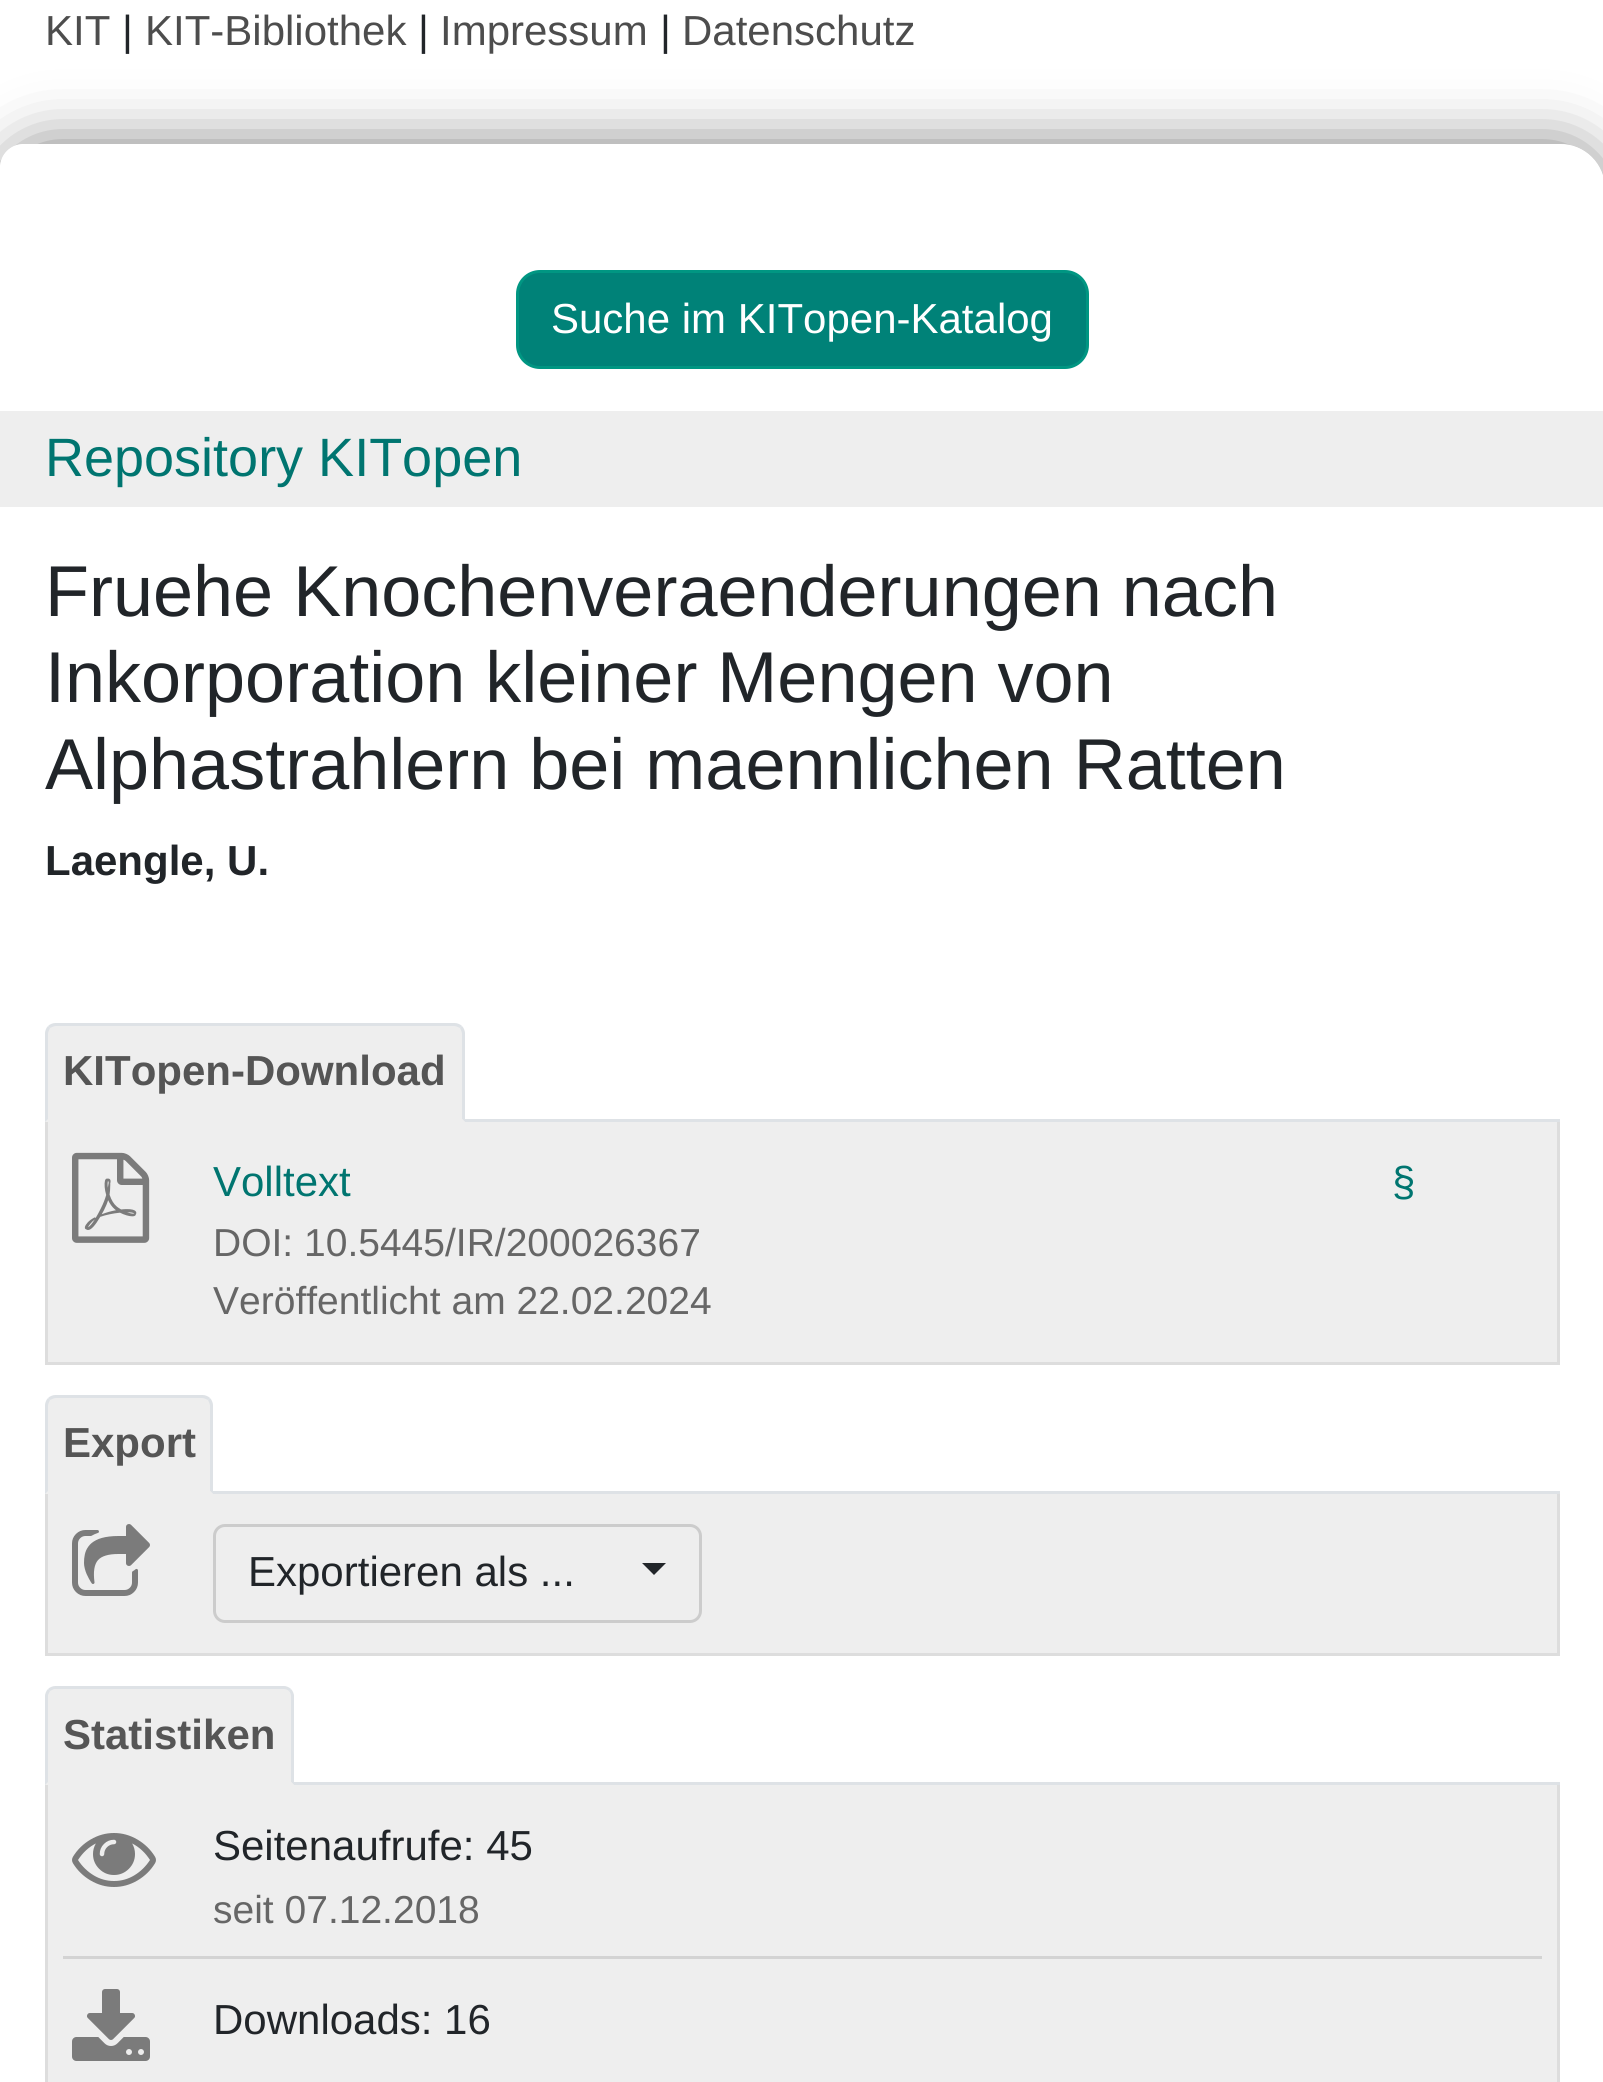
import math
import cairo

surface = cairo.ImageSurface(cairo.FORMAT_RGB24, 1603, 2082)
ctx = cairo.Context(surface)
options = cairo.FontOptions()
options.set_hint_metrics(cairo.HINT_METRICS_OFF)
options.set_hint_style(cairo.HINT_STYLE_NONE)
ctx.set_font_options(options)
ctx.set_miter_limit(4)


def set_color(code):
    ctx.set_source_rgb(*(v / 255 for v in bytes.fromhex(code[-6:])))


def draw_text(x, y, s, family, size, color, bold=False, italic=False):
    ctx.select_font_face(family, cairo.FONT_SLANT_ITALIC if italic else cairo.FONT_SLANT_NORMAL, cairo.FONT_WEIGHT_BOLD if bold else cairo.FONT_WEIGHT_NORMAL)
    ctx.set_font_size(size)
    set_color(color)
    ctx.move_to(x, y)
    ctx.show_text(s)


def fill_rect(x, y, w, h, color):
    set_color(color)
    ctx.rectangle(x, y, w, h)
    ctx.fill()


def rounded_rect(x, y, w, h, r):
    ctx.new_sub_path()
    for i, (u, v) in enumerate([(x + w - r, y + h - r), (x + r, y + h - r), (x + r, y + r), (x + w - r, y + r)]):
        ctx.arc(u, v, r, i * math.pi / 2, (i + 1) * math.pi / 2)
    ctx.close_path()


def draw_shadow(x, y, w, h, r, blur, alpha):
    ctx.push_group_with_content(cairo.CONTENT_ALPHA)
    ctx.set_operator(cairo.OPERATOR_SOURCE)
    for i in range(15, -16, -2):
        e = blur * i / 6
        if min(w, h) + 2 * e > 0:
            ctx.set_source_rgba(0, 0, 0, alpha * math.erfc((i - 1) / 8.5) / 2)
            rounded_rect(x - e, y - e, w + 2 * e, h + 2 * e, max(0, min(r + e + blur * .6, min(w, h) / 2 + e)))
            ctx.fill()
    ctx.mask(ctx.pop_group())


def draw_image(path, x, y, w, h):
    ctx.save()
    ctx.set_source_surface(cairo.ImageSurface.create_from_png(path), x, y)
    ctx.rectangle(x, y, w, h)
    ctx.fill()
    ctx.restore()


set_color("#ffffff")
ctx.paint()
draw_text(45, 45, "KIT", "Liberation Sans", 42, "#4d4d4d")
ctx.save()
ctx.set_fill_rule(cairo.FILL_RULE_EVEN_ODD)
ctx.new_path()
ctx.move_to(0, 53)
ctx.line_to(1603, 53)
ctx.line_to(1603, 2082)
ctx.line_to(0, 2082)
ctx.close_path()
ctx.move_to(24, 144)
ctx.line_to(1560, 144)
ctx.curve_to(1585, 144, 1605, 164, 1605, 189)
ctx.line_to(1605, 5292)
ctx.curve_to(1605, 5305.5, 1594.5, 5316, 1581, 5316)
ctx.line_to(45, 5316)
ctx.curve_to(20, 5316, 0, 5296, 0, 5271)
ctx.line_to(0, 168)
ctx.curve_to(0, 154.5, 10.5, 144, 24, 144)
ctx.close_path()
ctx.clip()
set_color("#808080")
draw_shadow(0, 144, 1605, 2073, 45, 30, 1)
ctx.restore()
draw_text(122, 45, "|", "Liberation Sans", 42, "#212529")
draw_text(145, 45, "KIT-Bibliothek", "Liberation Sans", 42, "#4d4d4d")
draw_text(418, 45, "|", "Liberation Sans", 42, "#212529")
draw_text(440, 45, "Impressum", "Liberation Sans", 42, "#4d4d4d")
draw_text(660, 45, "|", "Liberation Sans", 42, "#212529")
draw_text(682, 45, "Datenschutz", "Liberation Sans", 42, "#4d4d4d")
set_color("#008278")
rounded_rect(517.5, 271.5, 570, 96, 22.5)
ctx.fill_preserve()
set_color("#009682")
ctx.set_line_width(3)
ctx.stroke()
draw_text(551, 333, "Suche im KITopen-Katalog", "Liberation Sans", 42, "#ffffff")
fill_rect(0, 411, 1603, 96, "#eeeeee")
draw_text(45, 476, "Repository KITopen", "Liberation Sans", 54, "#007570")
draw_text(45, 616, "Fruehe Knochenveraenderungen nach", "Liberation Sans", 72, "#212529")
draw_text(45, 702, "Inkorporation kleiner Mengen von", "Liberation Sans", 72, "#212529")
draw_text(45, 789, "Alphastrahlern bei maennlichen Ratten", "Liberation Sans", 72, "#212529")
draw_text(45, 875, "Laengle, U.", "Liberation Sans", 42, "#212529", bold=True)
fill_rect(465, 1119, 1095, 3, "#dee2e6")
set_color("#eeeeee")
ctx.new_path()
ctx.move_to(57, 1023)
ctx.line_to(453, 1023)
ctx.curve_to(459.5, 1023, 465, 1028.5, 465, 1035)
ctx.line_to(465, 1122)
ctx.line_to(45, 1122)
ctx.line_to(45, 1035)
ctx.curve_to(45, 1028.5, 50.5, 1023, 57, 1023)
ctx.close_path()
ctx.fill()
set_color("#dee2e6")
ctx.new_path()
ctx.move_to(56, 1023)
ctx.curve_to(53, 1023, 50, 1024, 48, 1026)
ctx.line_to(50, 1028)
ctx.curve_to(52, 1027, 54, 1026, 56, 1026)
ctx.line_to(454, 1026)
ctx.curve_to(456, 1026, 458, 1027, 460, 1028)
ctx.line_to(462, 1026)
ctx.curve_to(460, 1024, 457, 1023, 454, 1023)
ctx.close_path()
ctx.fill()
ctx.new_path()
ctx.move_to(465, 1122)
ctx.line_to(465, 1034)
ctx.curve_to(465, 1031, 464, 1028, 462, 1026)
ctx.line_to(460, 1028)
ctx.curve_to(461, 1030, 462, 1032, 462, 1034)
ctx.line_to(462, 1119)
ctx.close_path()
ctx.fill()
set_color("#eeeeee")
ctx.new_path()
ctx.move_to(465, 1122)
ctx.line_to(462, 1119)
ctx.line_to(48, 1119)
ctx.line_to(45, 1122)
ctx.close_path()
ctx.fill()
set_color("#dee2e6")
ctx.new_path()
ctx.move_to(45, 1122)
ctx.line_to(48, 1119)
ctx.line_to(48, 1034)
ctx.curve_to(48, 1032, 49, 1030, 50, 1028)
ctx.line_to(48, 1026)
ctx.curve_to(46, 1028, 45, 1031, 45, 1034)
ctx.close_path()
ctx.fill()
draw_text(63, 1085, "KITopen-Download", "Liberation Sans", 42, "#555555", bold=True)
fill_rect(48, 1122, 1509, 240, "#eeeeee")
fill_rect(1557, 1122, 3, 243, "#dddddd")
fill_rect(45, 1362, 1515, 3, "#dddddd")
fill_rect(45, 1122, 3, 243, "#dddddd")
draw_image("assets/img1.png", 72, 1152, 78, 91)
draw_text(213, 1196, "Volltext", "Liberation Sans", 42, "#007570")
draw_text(1392, 1196, "§", "Liberation Sans", 42, "#007570")
draw_text(213, 1256, "DOI: 10.5445/IR/200026367", "Liberation Sans", 39, "#666666")
draw_text(213, 1314, "Veröffentlicht am 22.02.2024", "Liberation Sans", 39, "#666666")
fill_rect(213, 1491, 1347, 3, "#dee2e6")
set_color("#eeeeee")
ctx.new_path()
ctx.move_to(57, 1395)
ctx.line_to(201, 1395)
ctx.curve_to(207.5, 1395, 213, 1400.5, 213, 1407)
ctx.line_to(213, 1494)
ctx.line_to(45, 1494)
ctx.line_to(45, 1407)
ctx.curve_to(45, 1400.5, 50.5, 1395, 57, 1395)
ctx.close_path()
ctx.fill()
set_color("#dee2e6")
ctx.new_path()
ctx.move_to(56, 1395)
ctx.curve_to(53, 1395, 50, 1396, 48, 1398)
ctx.line_to(50, 1400)
ctx.curve_to(52, 1399, 54, 1398, 56, 1398)
ctx.line_to(202, 1398)
ctx.curve_to(204, 1398, 206, 1399, 208, 1400)
ctx.line_to(210, 1398)
ctx.curve_to(208, 1396, 205, 1395, 202, 1395)
ctx.close_path()
ctx.fill()
ctx.new_path()
ctx.move_to(213, 1494)
ctx.line_to(213, 1406)
ctx.curve_to(213, 1403, 212, 1400, 210, 1398)
ctx.line_to(208, 1400)
ctx.curve_to(209, 1402, 210, 1404, 210, 1406)
ctx.line_to(210, 1491)
ctx.close_path()
ctx.fill()
set_color("#eeeeee")
ctx.new_path()
ctx.move_to(213, 1494)
ctx.line_to(210, 1491)
ctx.line_to(48, 1491)
ctx.line_to(45, 1494)
ctx.close_path()
ctx.fill()
set_color("#dee2e6")
ctx.new_path()
ctx.move_to(45, 1494)
ctx.line_to(48, 1491)
ctx.line_to(48, 1406)
ctx.curve_to(48, 1404, 49, 1402, 50, 1400)
ctx.line_to(48, 1398)
ctx.curve_to(46, 1400, 45, 1403, 45, 1406)
ctx.close_path()
ctx.fill()
draw_text(63, 1457, "Export", "Liberation Sans", 42, "#555555", bold=True)
fill_rect(48, 1494, 1509, 159, "#eeeeee")
fill_rect(1557, 1494, 3, 162, "#dddddd")
fill_rect(45, 1653, 1515, 3, "#dddddd")
fill_rect(45, 1494, 3, 162, "#dddddd")
draw_image("assets/img2.png", 72, 1524, 78, 72)
rounded_rect(214.5, 1525.5, 486, 96, 10.5)
set_color("#cccccc")
ctx.stroke()
draw_text(248, 1586, "Exportieren als ...", "Liberation Sans", 42, "#212529")
ctx.new_path()
ctx.move_to(642, 1563)
ctx.line_to(666, 1563)
ctx.line_to(654, 1575)
ctx.close_path()
ctx.fill()
fill_rect(294, 1782, 1266, 3, "#dee2e6")
set_color("#eeeeee")
ctx.new_path()
ctx.move_to(57, 1686)
ctx.line_to(282, 1686)
ctx.curve_to(288.5, 1686, 294, 1691.5, 294, 1698)
ctx.line_to(294, 1785)
ctx.line_to(45, 1785)
ctx.line_to(45, 1698)
ctx.curve_to(45, 1691.5, 50.5, 1686, 57, 1686)
ctx.close_path()
ctx.fill()
set_color("#dee2e6")
ctx.new_path()
ctx.move_to(56, 1686)
ctx.curve_to(53, 1686, 50, 1687, 48, 1689)
ctx.line_to(50, 1691)
ctx.line_to(54, 1689)
ctx.line_to(284, 1689)
ctx.curve_to(286, 1689, 288, 1690, 289, 1691)
ctx.line_to(291, 1689)
ctx.curve_to(289, 1687, 286, 1686, 284, 1686)
ctx.close_path()
ctx.fill()
ctx.new_path()
ctx.move_to(294, 1785)
ctx.line_to(294, 1696)
ctx.curve_to(294, 1694, 293, 1691, 291, 1689)
ctx.line_to(289, 1691)
ctx.curve_to(290, 1692, 291, 1694, 291, 1696)
ctx.line_to(291, 1782)
ctx.close_path()
ctx.fill()
set_color("#eeeeee")
ctx.new_path()
ctx.move_to(294, 1785)
ctx.line_to(291, 1782)
ctx.line_to(48, 1782)
ctx.line_to(45, 1785)
ctx.close_path()
ctx.fill()
set_color("#dee2e6")
ctx.new_path()
ctx.move_to(45, 1785)
ctx.line_to(48, 1782)
ctx.line_to(48, 1695)
ctx.line_to(50, 1691)
ctx.line_to(48, 1689)
ctx.curve_to(46, 1691, 45, 1694, 45, 1696)
ctx.close_path()
ctx.fill()
draw_text(63, 1749, "Statistiken", "Liberation Sans", 42, "#555555", bold=True)
fill_rect(48, 1785, 1509, 297, "#eeeeee")
fill_rect(1557, 1785, 3, 297, "#dddddd")
fill_rect(45, 1785, 3, 297, "#dddddd")
fill_rect(63, 1956, 1479, 3, "#d3d3d3")
draw_image("assets/img3.png", 72, 1833, 84, 54)
draw_text(213, 1860, "Seitenaufrufe: 45", "Liberation Sans", 42, "#212529")
draw_text(213, 1923, "seit 07.12.2018", "Liberation Sans", 39, "#666666")
draw_image("assets/img4.png", 72, 1989, 78, 72)
draw_text(213, 2034, "Downloads: 16", "Liberation Sans", 42, "#212529")
surface.write_to_png("output.png")
